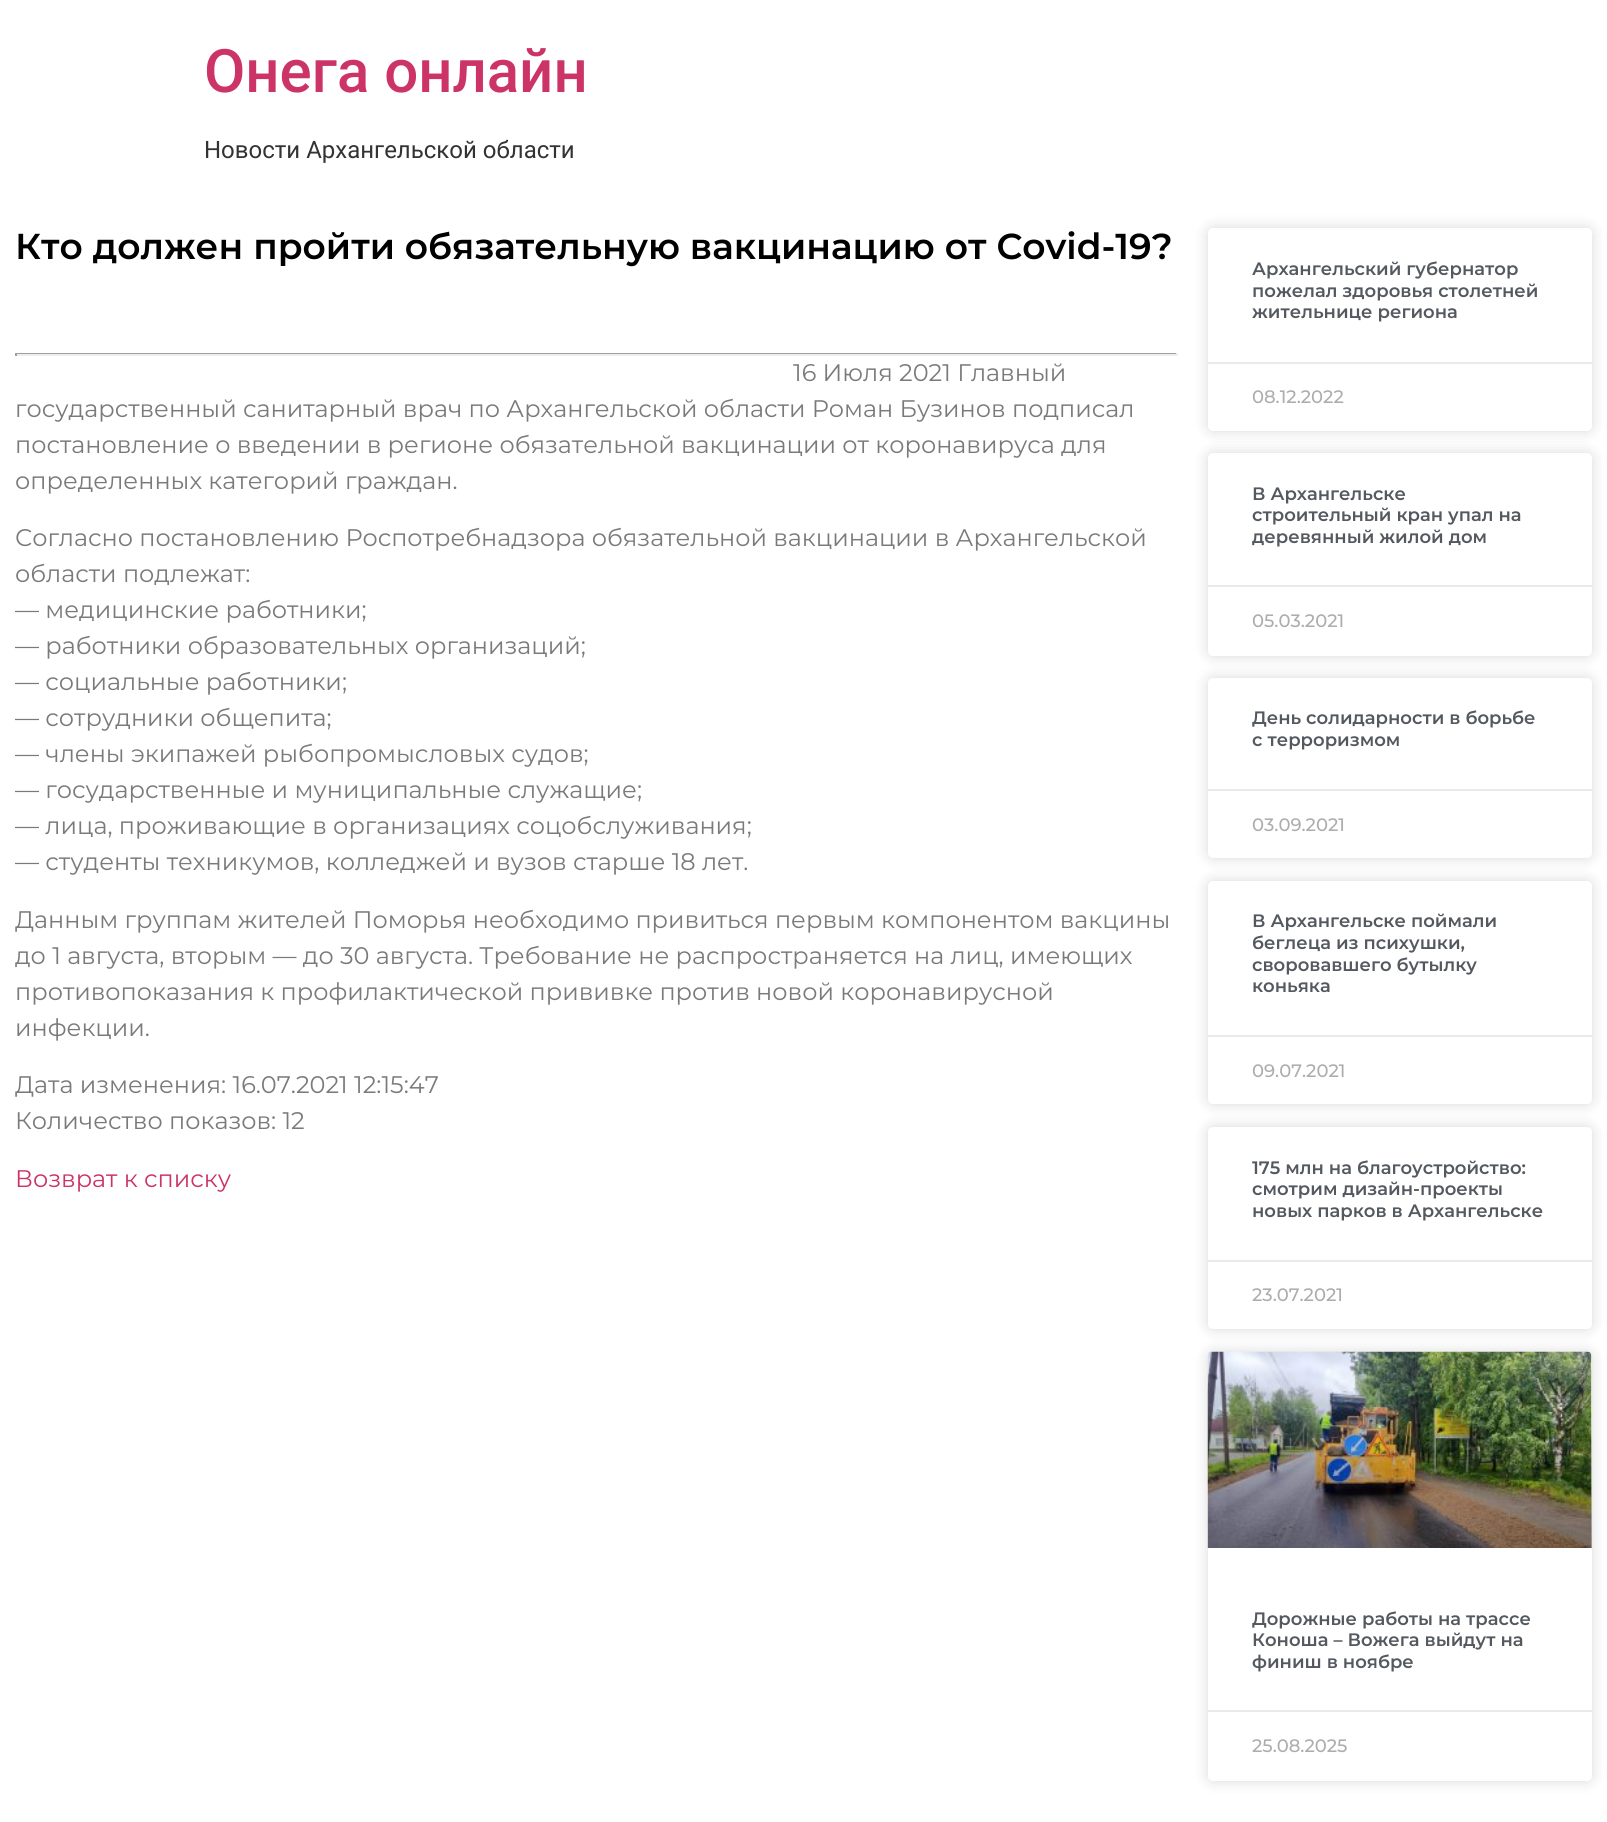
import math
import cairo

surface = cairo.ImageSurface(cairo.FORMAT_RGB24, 1607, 1822)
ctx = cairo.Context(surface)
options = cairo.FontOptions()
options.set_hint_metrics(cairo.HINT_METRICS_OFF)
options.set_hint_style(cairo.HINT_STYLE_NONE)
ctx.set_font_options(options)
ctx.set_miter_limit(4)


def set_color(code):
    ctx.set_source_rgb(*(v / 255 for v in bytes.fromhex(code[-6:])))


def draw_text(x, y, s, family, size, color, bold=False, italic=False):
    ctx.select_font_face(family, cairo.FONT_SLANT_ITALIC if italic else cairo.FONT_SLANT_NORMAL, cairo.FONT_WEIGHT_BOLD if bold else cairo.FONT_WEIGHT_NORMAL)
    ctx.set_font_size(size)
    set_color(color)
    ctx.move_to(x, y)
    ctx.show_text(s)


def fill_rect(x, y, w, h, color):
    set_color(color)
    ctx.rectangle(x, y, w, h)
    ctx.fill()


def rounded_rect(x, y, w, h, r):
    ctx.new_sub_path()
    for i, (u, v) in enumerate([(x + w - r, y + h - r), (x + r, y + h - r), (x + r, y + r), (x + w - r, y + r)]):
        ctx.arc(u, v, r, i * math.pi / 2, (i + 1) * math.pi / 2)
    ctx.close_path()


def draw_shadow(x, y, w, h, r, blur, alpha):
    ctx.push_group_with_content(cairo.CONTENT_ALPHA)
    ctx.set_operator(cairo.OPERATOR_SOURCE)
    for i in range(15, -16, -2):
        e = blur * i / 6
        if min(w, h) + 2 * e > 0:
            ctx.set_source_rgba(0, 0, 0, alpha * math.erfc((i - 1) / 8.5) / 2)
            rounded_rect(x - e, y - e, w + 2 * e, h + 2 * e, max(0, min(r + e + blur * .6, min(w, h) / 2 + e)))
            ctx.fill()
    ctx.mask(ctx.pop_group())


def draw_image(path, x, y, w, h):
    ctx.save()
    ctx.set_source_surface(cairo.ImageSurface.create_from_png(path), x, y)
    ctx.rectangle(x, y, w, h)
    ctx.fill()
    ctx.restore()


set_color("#ffffff")
ctx.paint()
draw_text(204, 92, "Онега онлайн", "Roboto Medium", 60, "#cc3366")
draw_text(204, 158, "Новости Архангельской области", "Roboto", 24, "#333333")
draw_text(15, 259, "Кто должен пройти обязательную вакцинацию от Covid-19?", "Montserrat SemiBold", 36, "#000000")
fill_rect(15, 353, 1163, 1, "#9f9f9f")
fill_rect(1176, 353, 2, 3, "#eeeeee")
fill_rect(15, 354, 1163, 2, "#eeeeee")
fill_rect(15, 353, 2, 3, "#9f9f9f")
draw_text(793, 381, "16 Июля 2021 Главный", "Montserrat", 24, "#7a7a7a")
draw_text(15, 417, "государственный санитарный врач по Архангельской области Роман Бузинов подписал", "Montserrat", 24, "#7a7a7a")
draw_text(15, 453, "постановление о введении в регионе обязательной вакцинации от коронавируса для", "Montserrat", 24, "#7a7a7a")
draw_text(15, 489, "определенных категорий граждан.", "Montserrat", 24, "#7a7a7a")
draw_text(15, 546, "Согласно постановлению Роспотребнадзора обязательной вакцинации в Архангельской", "Montserrat", 24, "#7a7a7a")
draw_text(15, 582, "области подлежат:", "Montserrat", 24, "#7a7a7a")
draw_text(15, 618, "— медицинские работники;", "Montserrat", 24, "#7a7a7a")
draw_text(15, 654, "— работники образовательных организаций;", "Montserrat", 24, "#7a7a7a")
draw_text(15, 690, "— социальные работники;", "Montserrat", 24, "#7a7a7a")
draw_text(15, 726, "— сотрудники общепита;", "Montserrat", 24, "#7a7a7a")
draw_text(15, 762, "— члены экипажей рыбопромысловых судов;", "Montserrat", 24, "#7a7a7a")
draw_text(15, 798, "— государственные и муниципальные служащие;", "Montserrat", 24, "#7a7a7a")
draw_text(15, 834, "— лица, проживающие в организациях соцобслуживания;", "Montserrat", 24, "#7a7a7a")
draw_text(15, 870, "— студенты техникумов, колледжей и вузов старше 18 лет.", "Montserrat", 24, "#7a7a7a")
draw_text(15, 928, "Данным группам жителей Поморья необходимо привиться первым компонентом вакцины", "Montserrat", 24, "#7a7a7a")
draw_text(15, 964, "до 1 августа, вторым — до 30 августа. Требование не распространяется на лиц, имеющих", "Montserrat", 24, "#7a7a7a")
draw_text(15, 1000, "противопоказания к профилактической прививке против новой коронавирусной", "Montserrat", 24, "#7a7a7a")
draw_text(15, 1036, "инфекции.", "Montserrat", 24, "#7a7a7a")
draw_text(15, 1093, "Дата изменения: 16.07.2021 12:15:47", "Montserrat", 24, "#7a7a7a")
draw_text(15, 1129, "Количество показов: 12", "Montserrat", 24, "#7a7a7a")
draw_text(15, 1187, "Возврат к списку", "Montserrat", 24, "#cc3366")
set_color("#000000")
draw_shadow(1208, 228, 384, 203, 5, 7.5, 0.15)
set_color("#ffffff")
rounded_rect(1208, 228, 384, 203, 5)
ctx.fill()
draw_text(1252, 275, "Архангельский губернатор", "Montserrat SemiBold", 18, "#54595f")
draw_text(1252, 297, "пожелал здоровья столетней", "Montserrat SemiBold", 18, "#54595f")
draw_text(1252, 318, "жительнице региона", "Montserrat SemiBold", 18, "#54595f")
fill_rect(1208, 362, 384, 2, "#eaeaea")
draw_text(1252, 403, "08.12.2022", "Montserrat Medium", 18, "#adadad")
set_color("#000000")
draw_shadow(1208, 453, 384, 203, 5, 7.5, 0.15)
set_color("#ffffff")
rounded_rect(1208, 453, 384, 203, 5)
ctx.fill()
draw_text(1252, 500, "В Архангельске", "Montserrat SemiBold", 18, "#54595f")
draw_text(1252, 521, "строительный кран упал на", "Montserrat SemiBold", 18, "#54595f")
draw_text(1252, 543, "деревянный жилой дом", "Montserrat SemiBold", 18, "#54595f")
fill_rect(1208, 585, 384, 2, "#eaeaea")
draw_text(1252, 627, "05.03.2021", "Montserrat Medium", 18, "#adadad")
set_color("#000000")
draw_shadow(1208, 678, 384, 180, 5, 7.5, 0.15)
set_color("#ffffff")
rounded_rect(1208, 678, 384, 180, 5)
ctx.fill()
draw_text(1252, 724, "День солидарности в борьбе", "Montserrat SemiBold", 18, "#54595f")
draw_text(1252, 746, "с терроризмом", "Montserrat SemiBold", 18, "#54595f")
fill_rect(1208, 789, 384, 2, "#eaeaea")
draw_text(1252, 831, "03.09.2021", "Montserrat Medium", 18, "#adadad")
set_color("#000000")
draw_shadow(1208, 881, 384, 223, 5, 7.5, 0.15)
set_color("#ffffff")
rounded_rect(1208, 881, 384, 223, 5)
ctx.fill()
draw_text(1252, 927, "В Архангельске поймали", "Montserrat SemiBold", 18, "#54595f")
draw_text(1252, 949, "беглеца из психушки,", "Montserrat SemiBold", 18, "#54595f")
draw_text(1252, 971, "своровавшего бутылку", "Montserrat SemiBold", 18, "#54595f")
draw_text(1252, 992, "коньяка", "Montserrat SemiBold", 18, "#54595f")
fill_rect(1208, 1035, 384, 2, "#eaeaea")
draw_text(1252, 1077, "09.07.2021", "Montserrat Medium", 18, "#adadad")
set_color("#000000")
draw_shadow(1208, 1127, 384, 202, 5, 7.5, 0.15)
set_color("#ffffff")
rounded_rect(1208, 1127, 384, 202, 5)
ctx.fill()
draw_text(1252, 1174, "175 млн на благоустройство:", "Montserrat SemiBold", 18, "#54595f")
draw_text(1252, 1195, "смотрим дизайн-проекты", "Montserrat SemiBold", 18, "#54595f")
draw_text(1252, 1217, "новых парков в Архангельске", "Montserrat SemiBold", 18, "#54595f")
fill_rect(1208, 1260, 384, 2, "#eaeaea")
draw_text(1252, 1301, "23.07.2021", "Montserrat Medium", 18, "#adadad")
set_color("#000000")
draw_shadow(1208, 1352, 384, 429, 5, 7.5, 0.15)
set_color("#ffffff")
rounded_rect(1208, 1352, 384, 429, 5)
ctx.fill()
draw_image("assets/img1.png", 1207, 1351, 385, 197)
gradient = cairo.LinearGradient(1400, 1548, 1400, 1352)
gradient.add_color_stop_rgba(0, 0, 0, 0, 0.35)
gradient.add_color_stop_rgba(0.75, 0, 0, 0, 0)
ctx.set_source(gradient)
ctx.rectangle(1208, 1410, 384, 138)
ctx.fill()
draw_text(1252, 1625, "Дорожные работы на трассе", "Montserrat SemiBold", 18, "#54595f")
draw_text(1252, 1646, "Коноша – Вожега выйдут на", "Montserrat SemiBold", 18, "#54595f")
draw_text(1252, 1668, "финиш в ноябре", "Montserrat SemiBold", 18, "#54595f")
fill_rect(1208, 1710, 384, 2, "#eaeaea")
draw_text(1252, 1752, "25.08.2025", "Montserrat Medium", 18, "#adadad")
surface.write_to_png("output.png")
